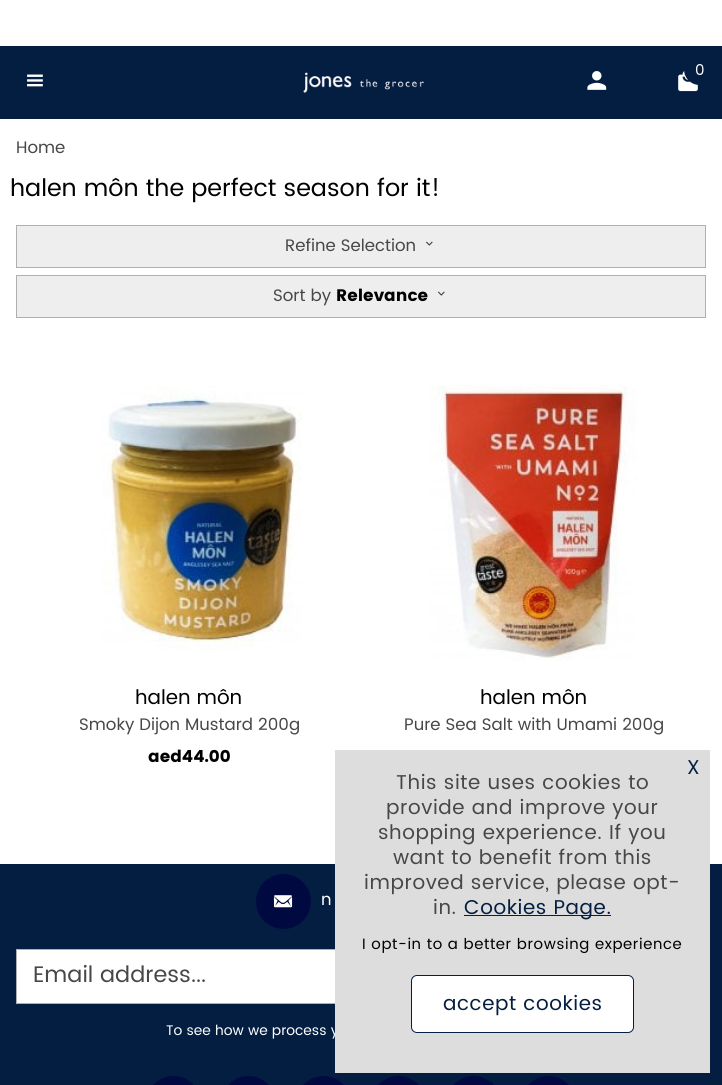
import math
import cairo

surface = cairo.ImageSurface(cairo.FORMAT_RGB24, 722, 1085)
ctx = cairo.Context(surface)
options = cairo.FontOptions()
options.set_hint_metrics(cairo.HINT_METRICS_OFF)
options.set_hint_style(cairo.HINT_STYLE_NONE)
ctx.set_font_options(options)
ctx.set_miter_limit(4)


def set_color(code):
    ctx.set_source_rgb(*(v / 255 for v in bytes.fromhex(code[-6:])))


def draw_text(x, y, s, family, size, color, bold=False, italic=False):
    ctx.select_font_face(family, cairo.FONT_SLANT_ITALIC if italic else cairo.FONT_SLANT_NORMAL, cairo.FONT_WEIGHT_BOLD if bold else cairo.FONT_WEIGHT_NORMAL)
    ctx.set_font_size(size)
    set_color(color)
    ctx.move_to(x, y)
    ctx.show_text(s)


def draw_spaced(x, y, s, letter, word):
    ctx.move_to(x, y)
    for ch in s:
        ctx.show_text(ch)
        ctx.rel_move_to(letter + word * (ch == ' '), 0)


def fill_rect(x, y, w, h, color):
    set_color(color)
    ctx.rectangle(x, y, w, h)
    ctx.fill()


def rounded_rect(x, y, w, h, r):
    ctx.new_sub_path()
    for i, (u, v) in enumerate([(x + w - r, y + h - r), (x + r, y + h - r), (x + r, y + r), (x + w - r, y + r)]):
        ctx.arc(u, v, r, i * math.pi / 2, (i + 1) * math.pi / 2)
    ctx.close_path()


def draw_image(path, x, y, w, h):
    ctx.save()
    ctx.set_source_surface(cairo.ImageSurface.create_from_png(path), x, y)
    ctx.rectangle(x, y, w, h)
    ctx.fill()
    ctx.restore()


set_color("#ffffff")
ctx.paint()
fill_rect(0, 46, 722, 73, "#041e42")
draw_text(23, 91, "<", "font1", 24, "#ffffff")
draw_image("assets/img1.png", 303, 72, 122, 22)
draw_text(586, 91, "/", "font1", 24, "#ffffff")
draw_text(676, 91, ",", "font1", 24, "#ffffff")
set_color("#041e42")
ctx.new_path()
ctx.arc(699.5, 69.5, 14, 0, 2 * math.pi)
ctx.fill_preserve()
ctx.set_line_width(3)
ctx.stroke()
draw_text(695, 75, "0", "Poppins", 15, "#ffffff")
draw_text(16, 153, "Home", "Poppins", 16.7, "#474747")
draw_text(10, 196, "halen môn the perfect season for it!", "Poppins", 24, "#000000")
set_color("#eeeeee")
ctx.rectangle(16.5, 225.5, 689, 42)
ctx.fill_preserve()
set_color("#afafaf")
ctx.set_line_width(1)
ctx.stroke()
draw_text(285, 251, "Refine Selection", "Poppins", 16.7, "#474747")
draw_text(421, 251, "$", "font1", 16.7, "#474747")
set_color("#eeeeee")
ctx.rectangle(16.5, 275.5, 689, 42)
ctx.fill_preserve()
set_color("#afafaf")
ctx.stroke()
draw_text(273, 301, "Sort by", "Poppins", 16.7, "#474747")
draw_text(336, 301, "Relevance", "Poppins", 16.7, "#000000", bold=True)
draw_text(433, 301, "$", "font1", 16.7, "#474747")
draw_image("assets/img2.png", 102, 386, 200, 265)
draw_text(135, 704, "halen môn", "Poppins", 20, "#000000")
draw_text(79, 730, "Smoky Dijon Mustard 200g", "Poppins", 16.7, "#474747")
draw_text(148, 762, "aed44.00", "Poppins", 16.7, "#000000", bold=True)
draw_image("assets/img3.png", 429, 385, 208, 276)
draw_text(480, 704, "halen môn", "Poppins", 20, "#000000")
draw_text(404, 730, "Pure Sea Salt with Umami 200g", "Poppins", 16.7, "#474747")
fill_rect(0, 864, 722, 221, "#041e42")
set_color("#000a40")
ctx.new_path()
ctx.arc(283.5, 901.5, 27.5, 0, 2 * math.pi)
ctx.fill()
draw_text(271, 911, "4", "font1", 24, "#ffffff")
draw_text(321, 905, "n", "Poppins", 16.7, "#ffffff")
fill_rect(17, 950, 318, 53, "#ffffff")
fill_rect(16, 949, 319, 1, "#afafaf")
fill_rect(16, 1003, 319, 1, "#afafaf")
fill_rect(16, 949, 1, 55, "#afafaf")
draw_text(33, 982, "Email address...", "Poppins", 22.5, "#474747")
draw_text(166, 1035, "To see how we process y", "Poppins", 13.9, "#ffffff")
set_color("#000a40")
rounded_rect(146, 1076, 55, 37, 27.5)
ctx.fill()
rounded_rect(221, 1076, 55, 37, 27.5)
ctx.fill()
rounded_rect(296, 1076, 55, 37, 27.5)
ctx.fill()
rounded_rect(371, 1076, 55, 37, 27.5)
ctx.fill()
rounded_rect(446, 1076, 55, 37, 27.5)
ctx.fill()
rounded_rect(521, 1076, 55, 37, 27.5)
ctx.fill()
fill_rect(335, 750, 375, 323, "#dddddd")
ctx.set_font_size(20)
set_color("#041e42")
draw_spaced(687, 774, "X", 0.6, 0)
set_color("#474747")
draw_spaced(396, 789, "This site uses cookies to", 0.6, 0)
draw_spaced(386, 814, "provide and improve your", 0.6, 0)
draw_spaced(378, 839, "shopping experience. If you", 0.6, 0)
draw_spaced(393, 864, "want to benefit from this", 0.6, 0)
draw_spaced(364, 889, "improved service, please opt-", 0.6, 0)
draw_spaced(433, 914, "in.", 0.6, 0)
fill_rect(464, 915, 147, 1, "#041e42")
draw_spaced(464, 914, "Cookies Page.", 0.6, 0)
ctx.set_font_size(15)
set_color("#000000")
draw_spaced(362, 949, "I opt-in to a better browsing experience", 0.6, 0)
set_color("#ffffff")
rounded_rect(411.5, 975.5, 222, 57, 5.5)
ctx.fill_preserve()
set_color("#041e42")
ctx.stroke()
ctx.set_font_size(20)
draw_spaced(443, 1010, "accept cookies", 0.6, 0)
surface.write_to_png("output.png")
